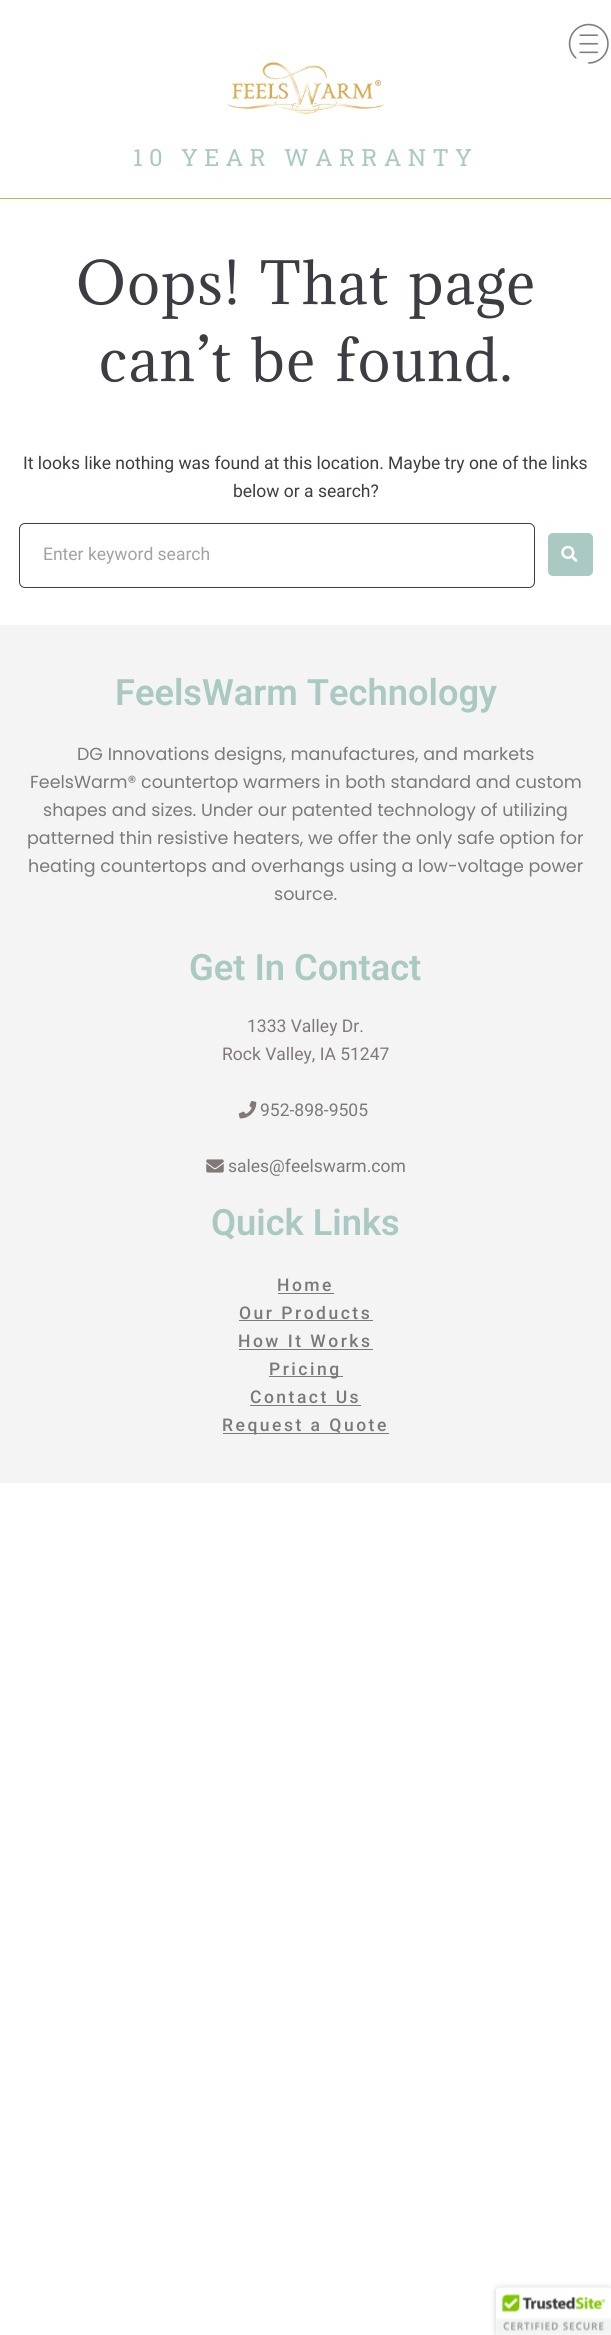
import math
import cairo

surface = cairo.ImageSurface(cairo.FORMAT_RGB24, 611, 2335)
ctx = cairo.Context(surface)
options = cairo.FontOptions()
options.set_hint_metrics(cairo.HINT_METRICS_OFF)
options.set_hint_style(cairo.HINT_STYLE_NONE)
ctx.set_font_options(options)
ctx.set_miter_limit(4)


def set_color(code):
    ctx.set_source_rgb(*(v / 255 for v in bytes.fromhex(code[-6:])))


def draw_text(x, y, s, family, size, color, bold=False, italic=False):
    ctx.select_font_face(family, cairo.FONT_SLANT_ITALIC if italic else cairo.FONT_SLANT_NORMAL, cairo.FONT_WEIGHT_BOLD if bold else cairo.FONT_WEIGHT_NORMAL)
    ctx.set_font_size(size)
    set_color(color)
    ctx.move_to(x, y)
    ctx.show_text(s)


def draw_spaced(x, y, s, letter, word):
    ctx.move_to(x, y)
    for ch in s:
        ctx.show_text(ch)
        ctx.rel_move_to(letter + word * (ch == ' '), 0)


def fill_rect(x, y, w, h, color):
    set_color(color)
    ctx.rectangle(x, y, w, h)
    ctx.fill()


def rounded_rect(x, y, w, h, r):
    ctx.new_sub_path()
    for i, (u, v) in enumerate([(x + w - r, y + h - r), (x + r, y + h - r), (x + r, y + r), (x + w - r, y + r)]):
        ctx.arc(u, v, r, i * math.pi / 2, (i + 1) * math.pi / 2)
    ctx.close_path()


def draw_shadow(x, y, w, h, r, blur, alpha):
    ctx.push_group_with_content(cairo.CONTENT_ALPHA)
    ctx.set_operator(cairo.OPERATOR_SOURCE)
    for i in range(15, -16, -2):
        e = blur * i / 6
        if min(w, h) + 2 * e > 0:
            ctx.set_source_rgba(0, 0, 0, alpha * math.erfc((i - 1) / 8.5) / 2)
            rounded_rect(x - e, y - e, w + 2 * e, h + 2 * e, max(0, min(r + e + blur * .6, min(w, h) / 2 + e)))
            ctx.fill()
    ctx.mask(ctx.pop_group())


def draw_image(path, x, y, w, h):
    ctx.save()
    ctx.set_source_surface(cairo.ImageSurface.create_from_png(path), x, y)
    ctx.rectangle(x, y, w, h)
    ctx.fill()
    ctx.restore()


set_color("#ffffff")
ctx.paint()
draw_image("assets/img1.png", 568, 23, 41, 41)
draw_image("assets/img2.png", 227, 62, 157, 52)
ctx.select_font_face("Roboto Slab")
ctx.set_font_size(23.75)
set_color("#aac9c3")
draw_spaced(133, 166, "10 YEAR WARRANTY", 6.25, 0)
fill_rect(0, 198, 611, 1, "#d7a94a")
ctx.select_font_face("Adamina")
ctx.set_font_size(55)
set_color("#3b3d42")
draw_spaced(76, 304, "Oops! That page", 1.5, 4)
draw_spaced(99, 381, "can’t be found.", 1.5, 4)
draw_text(23, 469, "It looks like nothing was found at this location. Maybe try one of the links", "Roboto", 17.5, "#3b3d42")
draw_text(233, 497, "below or a search?", "Roboto", 17.5, "#3b3d42")
rounded_rect(19.5, 523.5, 515, 64, 5.5)
ctx.set_line_width(1)
ctx.stroke()
draw_text(43, 560, "Enter keyword search", "Roboto", 17.5, "#a1a2a4")
set_color("#aac9c3")
rounded_rect(548, 533, 45, 43, 5)
ctx.fill()
draw_image("assets/img3.png", 561, 545, 17, 17)
fill_rect(0, 625, 611, 858, "#f4f4f4")
draw_text(115, 705, "FeelsWarm Technology", "Roboto SemiBold", 36.25, "#aac9c3")
draw_text(77, 760, "DG Innovations designs, manufactures, and markets", "Poppins", 17.5, "#7a7a7a")
draw_text(30, 788, "FeelsWarm® countertop warmers in both standard and custom", "Poppins", 17.5, "#7a7a7a")
draw_text(43, 816, "shapes and sizes. Under our patented technology of utilizing", "Poppins", 17.5, "#7a7a7a")
draw_text(27, 844, "patterned thin resistive heaters, we offer the only safe option for", "Poppins", 17.5, "#7a7a7a")
draw_text(28, 872, "heating countertops and overhangs using a low-voltage power", "Poppins", 17.5, "#7a7a7a")
draw_text(274, 900, "source.", "Poppins", 17.5, "#7a7a7a")
draw_text(189, 980, "Get In Contact", "Roboto SemiBold", 36.25, "#aac9c3")
draw_text(247, 1032, "1333 Valley Dr.", "Roboto", 17.5, "#837878")
draw_text(222, 1060, "Rock Valley, IA 51247", "Roboto", 17.5, "#837878")
draw_image("assets/img4.png", 238, 1101, 19, 18)
draw_text(260, 1116, "952-898-9505", "Roboto", 17.5, "#7a7a7a")
draw_image("assets/img5.png", 206, 1159, 18, 14)
draw_text(228, 1172, "sales@feelswarm.com", "Roboto", 17.5, "#7a7a7a")
draw_text(211, 1235, "Quick Links", "Roboto SemiBold", 36.25, "#aac9c3")
ctx.select_font_face("Roboto Medium")
ctx.set_font_size(17.5)
set_color("#7a7a7a")
draw_spaced(277, 1291, "Home", 2.5, 0)
fill_rect(278, 1293, 56, 1, "#7a7a7a")
draw_spaced(239, 1319, "Our Products", 2.5, 0)
fill_rect(239, 1320, 134, 1, "#7a7a7a")
draw_spaced(238, 1347, "How It Works", 2.5, 0)
fill_rect(239, 1349, 134, 1, "#7a7a7a")
fill_rect(269, 1376, 74, 1, "#7a7a7a")
draw_spaced(269, 1375, "Pricing", 2.5, 0)
draw_spaced(250, 1403, "Contact Us", 2.5, 0)
fill_rect(250, 1405, 111, 1, "#7a7a7a")
fill_rect(223, 1433, 166, 1, "#7a7a7a")
draw_spaced(222, 1431, "Request a Quote", 2.5, 0)
set_color("#000000")
draw_shadow(496, 2288, 115, 47, 2.5, 3, 0.2)
set_color("#ffffff")
ctx.new_path()
ctx.move_to(498.5, 2288)
ctx.line_to(611, 2288)
ctx.line_to(611, 2335)
ctx.line_to(496, 2335)
ctx.line_to(496, 2290.5)
ctx.curve_to(496, 2289, 497, 2288, 498.5, 2288)
ctx.close_path()
ctx.fill()
draw_image("assets/img6.png", 496, 2287, 115, 48)
surface.write_to_png("output.png")
